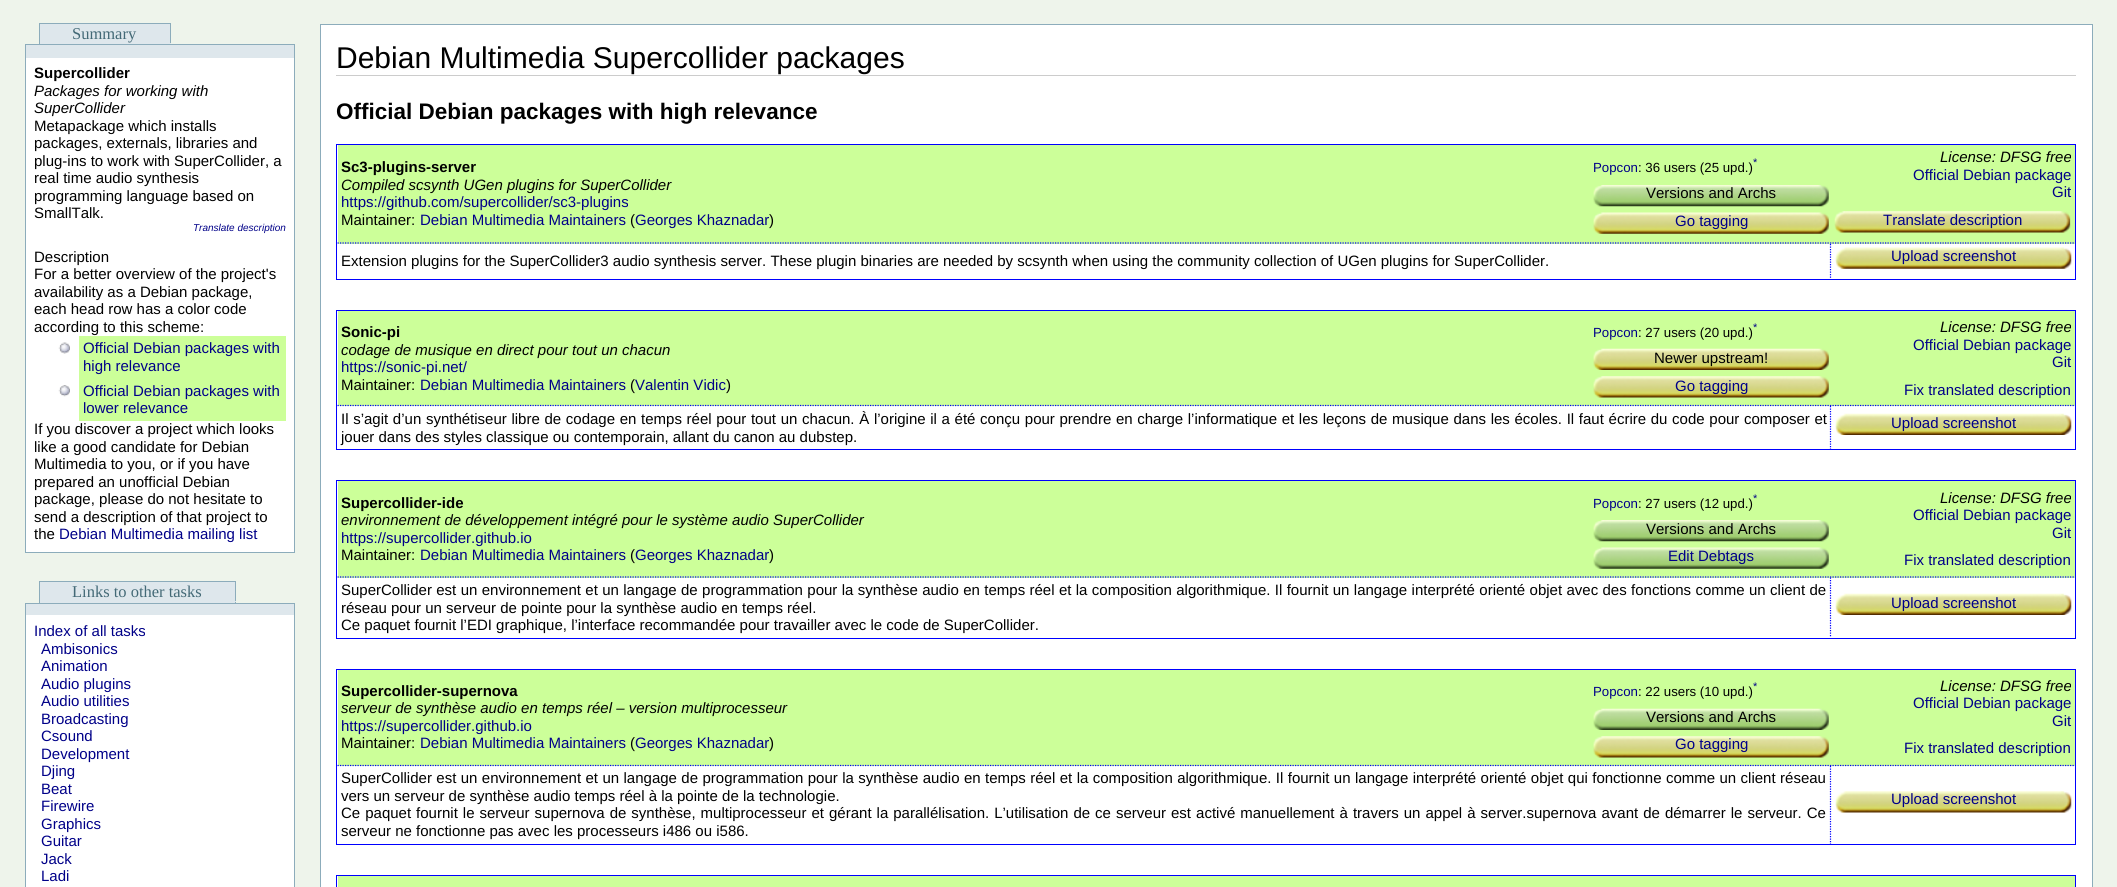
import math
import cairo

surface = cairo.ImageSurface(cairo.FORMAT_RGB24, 2117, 887)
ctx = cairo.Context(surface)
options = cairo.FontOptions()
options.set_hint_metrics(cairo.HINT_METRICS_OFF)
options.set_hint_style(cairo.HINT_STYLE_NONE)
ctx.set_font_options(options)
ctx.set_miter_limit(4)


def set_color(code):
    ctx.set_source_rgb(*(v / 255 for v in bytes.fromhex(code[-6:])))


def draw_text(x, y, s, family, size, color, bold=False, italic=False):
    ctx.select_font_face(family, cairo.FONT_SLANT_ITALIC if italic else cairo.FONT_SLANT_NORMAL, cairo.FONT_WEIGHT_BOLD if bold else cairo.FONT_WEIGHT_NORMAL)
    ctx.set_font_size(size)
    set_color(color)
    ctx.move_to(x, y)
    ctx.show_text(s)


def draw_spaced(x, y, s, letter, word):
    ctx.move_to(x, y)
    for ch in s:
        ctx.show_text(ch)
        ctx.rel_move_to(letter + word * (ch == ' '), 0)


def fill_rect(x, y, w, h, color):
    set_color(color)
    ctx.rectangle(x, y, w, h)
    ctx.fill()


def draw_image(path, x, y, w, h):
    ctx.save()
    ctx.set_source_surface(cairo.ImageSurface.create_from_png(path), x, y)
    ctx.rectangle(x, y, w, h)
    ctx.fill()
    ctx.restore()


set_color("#eef4eb")
ctx.paint()
fill_rect(40, 24, 130, 19, "#dee7ec")
draw_text(72, 39, "Summary", "Liberation Serif", 16.5, "#436976")
fill_rect(39, 23, 132, 1, "#8cacbb")
fill_rect(170, 23, 1, 21, "#8cacbb")
fill_rect(39, 43, 132, 1, "#dee7ec")
fill_rect(39, 23, 1, 21, "#8cacbb")
fill_rect(26, 58, 268, 494, "#ffffff")
ctx.rectangle(25.5, 44.5, 269, 508)
set_color("#8cacbb")
ctx.set_line_width(1)
ctx.stroke()
fill_rect(26, 45, 268, 13, "#dee7ec")
draw_text(34, 78, "Supercollider", "Liberation Sans", 15, "#000000", bold=True)
draw_text(34, 96, "Packages for working with", "Liberation Sans", 15, "#000000", italic=True)
draw_text(34, 113, "SuperCollider", "Liberation Sans", 15, "#000000", italic=True)
draw_text(34, 131, "Metapackage which installs", "Liberation Sans", 15, "#000000")
draw_text(34, 148, "packages, externals, libraries and", "Liberation Sans", 15, "#000000")
draw_text(34, 166, "plug-ins to work with SuperCollider, a", "Liberation Sans", 15, "#000000")
draw_text(34, 183, "real time audio synthesis", "Liberation Sans", 15, "#000000")
draw_text(34, 201, "programming language based on", "Liberation Sans", 15, "#000000")
draw_text(34, 218, "SmallTalk.", "Liberation Sans", 15, "#000000")
draw_text(193, 231, "Translate description", "Liberation Sans", 10, "#000088", italic=True)
draw_text(34, 262, "Description", "Liberation Sans", 15, "#000000")
draw_text(34, 279, "For a better overview of the project's", "Liberation Sans", 15, "#000000")
draw_text(34, 297, "availability as a Debian package,", "Liberation Sans", 15, "#000000")
draw_text(34, 314, "each head row has a color code", "Liberation Sans", 15, "#000000")
draw_text(34, 332, "according to this scheme:", "Liberation Sans", 15, "#000000")
fill_rect(79, 336, 207, 85, "#ccff99")
draw_image("assets/img1.png", 58, 342, 12, 12)
draw_text(83, 353, "Official Debian packages with", "Liberation Sans", 15, "#000088")
draw_text(83, 371, "high relevance", "Liberation Sans", 15, "#000088")
draw_image("assets/img2.png", 58, 385, 12, 12)
draw_text(83, 396, "Official Debian packages with", "Liberation Sans", 15, "#000088")
draw_text(83, 413, "lower relevance", "Liberation Sans", 15, "#000088")
draw_text(34, 434, "If you discover a project which looks", "Liberation Sans", 15, "#000000")
draw_text(34, 452, "like a good candidate for Debian", "Liberation Sans", 15, "#000000")
draw_text(34, 469, "Multimedia to you, or if you have", "Liberation Sans", 15, "#000000")
draw_text(34, 487, "prepared an unofficial Debian", "Liberation Sans", 15, "#000000")
draw_text(34, 504, "package, please do not hesitate to", "Liberation Sans", 15, "#000000")
draw_text(34, 522, "send a description of that project to", "Liberation Sans", 15, "#000000")
draw_text(34, 539, "the", "Liberation Sans", 15, "#000000")
draw_text(59, 539, "Debian Multimedia mailing list", "Liberation Sans", 15, "#000088")
fill_rect(40, 582, 195, 21, "#dee7ec")
draw_text(72, 597, "Links to other tasks", "Liberation Serif", 16.5, "#436976")
fill_rect(39, 581, 197, 1, "#8cacbb")
fill_rect(235, 581, 1, 22, "#8cacbb")
fill_rect(39, 601, 197, 1, "#dee7ec")
fill_rect(39, 581, 1, 22, "#8cacbb")
fill_rect(26, 615, 268, 272, "#ffffff")
ctx.rectangle(25.5, 603.5, 269, 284)
set_color("#8cacbb")
ctx.stroke()
fill_rect(26, 604, 268, 11, "#dee7ec")
draw_text(34, 636, "Index of all tasks", "Liberation Sans", 15, "#000088")
draw_text(41, 654, "Ambisonics", "Liberation Sans", 15, "#000088")
draw_text(41, 671, "Animation", "Liberation Sans", 15, "#000088")
draw_text(41, 689, "Audio plugins", "Liberation Sans", 15, "#000088")
draw_text(41, 706, "Audio utilities", "Liberation Sans", 15, "#000088")
draw_text(41, 724, "Broadcasting", "Liberation Sans", 15, "#000088")
draw_text(41, 741, "Csound", "Liberation Sans", 15, "#000088")
draw_text(41, 759, "Development", "Liberation Sans", 15, "#000088")
draw_text(41, 776, "Djing", "Liberation Sans", 15, "#000088")
draw_text(41, 794, "Beat", "Liberation Sans", 15, "#000088")
draw_text(41, 811, "Firewire", "Liberation Sans", 15, "#000088")
draw_text(41, 829, "Graphics", "Liberation Sans", 15, "#000088")
draw_text(41, 846, "Guitar", "Liberation Sans", 15, "#000088")
draw_text(41, 864, "Jack", "Liberation Sans", 15, "#000088")
draw_text(41, 881, "Ladi", "Liberation Sans", 15, "#000088")
set_color("#ffffff")
ctx.rectangle(320.5, 24.5, 1772, 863)
ctx.fill_preserve()
set_color("#8cacbb")
ctx.stroke()
fill_rect(336, 75, 1740, 1, "#cccccc")
draw_text(336, 68, "Debian Multimedia Supercollider packages", "Liberation Sans", 30, "#000000")
draw_text(336, 119, "Official Debian packages with high relevance", "Liberation Sans", 22.5, "#000000", bold=True)
ctx.rectangle(336.5, 144.5, 1739, 135)
set_color("#0000ff")
ctx.stroke()
fill_rect(338, 145, 1737, 99, "#ccff99")
ctx.new_path()
ctx.move_to(337.5, 243)
ctx.line_to(1592.5, 243)
set_color("#0000ff")
ctx.set_line_width(1.2)
ctx.set_dash([1.25, 1.25])
ctx.stroke()
draw_text(341, 172, "Sc3-plugins-server", "Liberation Sans", 15, "#000000", bold=True)
draw_text(341, 190, "Compiled scsynth UGen plugins for SuperCollider", "Liberation Sans", 15, "#000000", italic=True)
draw_text(341, 207, "https://github.com/supercollider/sc3-plugins", "Liberation Sans", 15, "#000088")
draw_text(341, 225, "Maintainer:", "Liberation Sans", 15, "#000000")
draw_text(420, 225, "Debian Multimedia Maintainers", "Liberation Sans", 15, "#000088")
draw_text(630, 225, "(", "Liberation Sans", 15, "#000000")
draw_text(635, 225, "Georges Khaznadar", "Liberation Sans", 15, "#000088")
draw_text(769, 225, ")", "Liberation Sans", 15, "#000000")
ctx.new_path()
ctx.move_to(1592.5, 243)
ctx.line_to(1830, 243)
set_color("#0000ff")
ctx.stroke()
draw_text(1753, 166, "*", "Liberation Sans", 11, "#000088")
draw_text(1593, 172, "Popcon", "Liberation Sans", 13.25, "#000088")
draw_text(1638, 172, ": 36 users (25 upd.)", "Liberation Sans", 13.25, "#000000")
draw_image("assets/img3.png", 1593, 185, 236, 22)
draw_text(1646, 198, "Versions and Archs", "Liberation Sans", 15, "#000000")
draw_image("assets/img4.png", 1593, 212, 236, 22)
draw_text(1675, 226, "Go tagging", "Liberation Sans", 15, "#000088")
ctx.new_path()
ctx.move_to(1830, 243)
ctx.line_to(2075, 243)
set_color("#0000ff")
ctx.stroke()
draw_text(1940, 162, "License: DFSG free", "Liberation Sans", 15, "#000000", italic=True)
draw_text(1913, 180, "Official Debian package", "Liberation Sans", 15, "#000088")
draw_text(2052, 197, "Git", "Liberation Sans", 15, "#000088")
draw_image("assets/img5.png", 1834, 211, 237, 22)
draw_text(1883, 225, "Translate description", "Liberation Sans", 15, "#000088")
draw_text(341, 266, "Extension plugins for the SuperCollider3 audio synthesis server. These plugin binaries are needed by scsynth when using the community collection of UGen plugins for SuperCollider.", "Liberation Sans", 15, "#000000")
ctx.new_path()
ctx.move_to(1830.5, 244)
ctx.line_to(1830.5, 279)
set_color("#0000ff")
ctx.stroke()
draw_image("assets/img6.png", 1835, 247, 237, 22)
draw_text(1891, 261, "Upload screenshot", "Liberation Sans", 15, "#000088")
ctx.rectangle(336.5, 310.5, 1739, 139)
set_color("#0000ff")
ctx.set_line_width(1)
ctx.set_dash([])
ctx.stroke()
fill_rect(338, 311, 1737, 95, "#ccff99")
ctx.new_path()
ctx.move_to(337.5, 405.5)
ctx.line_to(1592.5, 405.5)
set_color("#0000ff")
ctx.set_line_width(1.2)
ctx.set_dash([1.25, 1.25])
ctx.stroke()
draw_text(341, 337, "Sonic-pi", "Liberation Sans", 15, "#000000", bold=True)
draw_text(341, 355, "codage de musique en direct pour tout un chacun", "Liberation Sans", 15, "#000000", italic=True)
draw_text(341, 372, "https://sonic-pi.net/", "Liberation Sans", 15, "#000088")
draw_text(341, 390, "Maintainer:", "Liberation Sans", 15, "#000000")
draw_text(420, 390, "Debian Multimedia Maintainers", "Liberation Sans", 15, "#000088")
draw_text(630, 390, "(", "Liberation Sans", 15, "#000000")
draw_text(635, 390, "Valentin Vidic", "Liberation Sans", 15, "#000088")
draw_text(726, 390, ")", "Liberation Sans", 15, "#000000")
ctx.new_path()
ctx.move_to(1592.5, 405.5)
ctx.line_to(1830, 405.5)
set_color("#0000ff")
ctx.stroke()
draw_text(1753, 331, "*", "Liberation Sans", 11, "#000088")
draw_text(1593, 337, "Popcon", "Liberation Sans", 13.25, "#000088")
draw_text(1638, 337, ": 27 users (20 upd.)", "Liberation Sans", 13.25, "#000000")
draw_image("assets/img7.png", 1593, 348, 236, 22)
draw_text(1654, 363, "Newer upstream!", "Liberation Sans", 15, "#000000")
draw_image("assets/img8.png", 1593, 376, 236, 22)
draw_text(1675, 391, "Go tagging", "Liberation Sans", 15, "#000088")
ctx.new_path()
ctx.move_to(1830, 405.5)
ctx.line_to(2075, 405.5)
set_color("#0000ff")
ctx.stroke()
draw_text(1940, 332, "License: DFSG free", "Liberation Sans", 15, "#000000", italic=True)
draw_text(1913, 350, "Official Debian package", "Liberation Sans", 15, "#000088")
draw_text(2052, 367, "Git", "Liberation Sans", 15, "#000088")
draw_text(1904, 395, "Fix translated description", "Liberation Sans", 15, "#000088")
set_color("#000000")
draw_spaced(341, 424, "Il s’agit d’un synthétiseur libre de codage en temps réel pour tout un chacun. À l’origine il a été conçu pour prendre en charge l’informatique et les leçons de musique dans les écoles. Il faut écrire du code pour composer et", 0, 0.5)
draw_text(341, 442, "jouer dans des styles classique ou contemporain, allant du canon au dubstep.", "Liberation Sans", 15, "#000000")
ctx.new_path()
ctx.move_to(1830.5, 406)
ctx.line_to(1830.5, 449)
set_color("#0000ff")
ctx.stroke()
draw_image("assets/img9.png", 1835, 413, 237, 22)
draw_text(1891, 428, "Upload screenshot", "Liberation Sans", 15, "#000088")
ctx.rectangle(336.5, 480.5, 1739, 158)
set_color("#0000ff")
ctx.set_line_width(1)
ctx.set_dash([])
ctx.stroke()
fill_rect(338, 481, 1737, 97, "#ccff99")
ctx.new_path()
ctx.move_to(337.5, 577)
ctx.line_to(1592.5, 577)
set_color("#0000ff")
ctx.set_line_width(1.2)
ctx.set_dash([1.25, 1.25])
ctx.stroke()
draw_text(341, 508, "Supercollider-ide", "Liberation Sans", 15, "#000000", bold=True)
draw_text(341, 525, "environnement de développement intégré pour le système audio SuperCollider", "Liberation Sans", 15, "#000000", italic=True)
draw_text(341, 543, "https://supercollider.github.io", "Liberation Sans", 15, "#000088")
draw_text(341, 560, "Maintainer:", "Liberation Sans", 15, "#000000")
draw_text(420, 560, "Debian Multimedia Maintainers", "Liberation Sans", 15, "#000088")
draw_text(630, 560, "(", "Liberation Sans", 15, "#000000")
draw_text(635, 560, "Georges Khaznadar", "Liberation Sans", 15, "#000088")
draw_text(769, 560, ")", "Liberation Sans", 15, "#000000")
ctx.new_path()
ctx.move_to(1592.5, 577)
ctx.line_to(1830, 577)
set_color("#0000ff")
ctx.stroke()
draw_text(1753, 502, "*", "Liberation Sans", 11, "#000088")
draw_text(1593, 508, "Popcon", "Liberation Sans", 13.25, "#000088")
draw_text(1638, 508, ": 27 users (12 upd.)", "Liberation Sans", 13.25, "#000000")
draw_image("assets/img3.png", 1593, 520, 236, 22)
draw_text(1646, 534, "Versions and Archs", "Liberation Sans", 15, "#000000")
draw_image("assets/img10.png", 1593, 547, 236, 22)
draw_text(1668, 561, "Edit Debtags", "Liberation Sans", 15, "#000088")
ctx.new_path()
ctx.move_to(1830, 577)
ctx.line_to(2075, 577)
set_color("#0000ff")
ctx.stroke()
draw_text(1940, 503, "License: DFSG free", "Liberation Sans", 15, "#000000", italic=True)
draw_text(1913, 520, "Official Debian package", "Liberation Sans", 15, "#000088")
draw_text(2052, 538, "Git", "Liberation Sans", 15, "#000088")
draw_text(1904, 565, "Fix translated description", "Liberation Sans", 15, "#000088")
set_color("#000000")
draw_spaced(341, 595, "SuperCollider est un environnement et un langage de programmation pour la synthèse audio en temps réel et la composition algorithmique. Il fournit un langage interprété orienté objet avec des fonctions comme un client de", 0, 0.2)
draw_text(341, 613, "réseau pour un serveur de pointe pour la synthèse audio en temps réel.", "Liberation Sans", 15, "#000000")
draw_text(341, 630, "Ce paquet fournit l’EDI graphique, l’interface recommandée pour travailler avec le code de SuperCollider.", "Liberation Sans", 15, "#000000")
ctx.new_path()
ctx.move_to(1830.5, 577.5)
ctx.line_to(1830.5, 637.5)
set_color("#0000ff")
ctx.stroke()
draw_image("assets/img9.png", 1835, 593, 237, 22)
draw_text(1891, 608, "Upload screenshot", "Liberation Sans", 15, "#000088")
ctx.rectangle(336.5, 669.5, 1739, 175)
set_color("#0000ff")
ctx.set_line_width(1)
ctx.set_dash([])
ctx.stroke()
fill_rect(338, 670, 1737, 96, "#ccff99")
ctx.new_path()
ctx.move_to(337.5, 765.5)
ctx.line_to(1592.5, 765.5)
set_color("#0000ff")
ctx.set_line_width(1.2)
ctx.set_dash([1.25, 1.25])
ctx.stroke()
draw_text(341, 696, "Supercollider-supernova", "Liberation Sans", 15, "#000000", bold=True)
draw_text(341, 713, "serveur de synthèse audio en temps réel – version multiprocesseur", "Liberation Sans", 15, "#000000", italic=True)
draw_text(341, 731, "https://supercollider.github.io", "Liberation Sans", 15, "#000088")
draw_text(341, 748, "Maintainer:", "Liberation Sans", 15, "#000000")
draw_text(420, 748, "Debian Multimedia Maintainers", "Liberation Sans", 15, "#000088")
draw_text(630, 748, "(", "Liberation Sans", 15, "#000000")
draw_text(635, 748, "Georges Khaznadar", "Liberation Sans", 15, "#000088")
draw_text(769, 748, ")", "Liberation Sans", 15, "#000000")
ctx.new_path()
ctx.move_to(1592.5, 765.5)
ctx.line_to(1830, 765.5)
set_color("#0000ff")
ctx.stroke()
draw_text(1753, 690, "*", "Liberation Sans", 11, "#000088")
draw_text(1593, 696, "Popcon", "Liberation Sans", 13.25, "#000088")
draw_text(1638, 696, ": 22 users (10 upd.)", "Liberation Sans", 13.25, "#000000")
draw_image("assets/img11.png", 1593, 708, 236, 22)
draw_text(1646, 722, "Versions and Archs", "Liberation Sans", 15, "#000000")
draw_image("assets/img8.png", 1593, 736, 236, 22)
draw_text(1675, 749, "Go tagging", "Liberation Sans", 15, "#000088")
ctx.new_path()
ctx.move_to(1830, 765.5)
ctx.line_to(2075, 765.5)
set_color("#0000ff")
ctx.stroke()
draw_text(1940, 691, "License: DFSG free", "Liberation Sans", 15, "#000000", italic=True)
draw_text(1913, 708, "Official Debian package", "Liberation Sans", 15, "#000088")
draw_text(2052, 726, "Git", "Liberation Sans", 15, "#000088")
draw_text(1904, 753, "Fix translated description", "Liberation Sans", 15, "#000088")
set_color("#000000")
draw_spaced(341, 783, "SuperCollider est un environnement et un langage de programmation pour la synthèse audio en temps réel et la composition algorithmique. Il fournit un langage interprété orienté objet qui fonctionne comme un client réseau", 0, 0.25)
draw_text(341, 801, "vers un serveur de synthèse audio temps réel à la pointe de la technologie.", "Liberation Sans", 15, "#000000")
draw_spaced(341, 818, "Ce paquet fournit le serveur supernova de synthèse, multiprocesseur et gérant la parallélisation. L’utilisation de ce serveur est activé manuellement à travers un appel à server.supernova avant de démarrer le serveur. Ce", 0, 0.85)
draw_text(341, 836, "serveur ne fonctionne pas avec les processeurs i486 ou i586.", "Liberation Sans", 15, "#000000")
ctx.new_path()
ctx.move_to(1830.5, 766)
ctx.line_to(1830.5, 844)
set_color("#0000ff")
ctx.stroke()
draw_image("assets/img12.png", 1835, 791, 237, 22)
draw_text(1891, 804, "Upload screenshot", "Liberation Sans", 15, "#000088")
ctx.rectangle(336.5, 875.5, 1739, 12)
set_color("#0000ff")
ctx.set_line_width(1)
ctx.set_dash([])
ctx.stroke()
fill_rect(338, 876, 1737, 11, "#ccff99")
surface.write_to_png("output.png")
